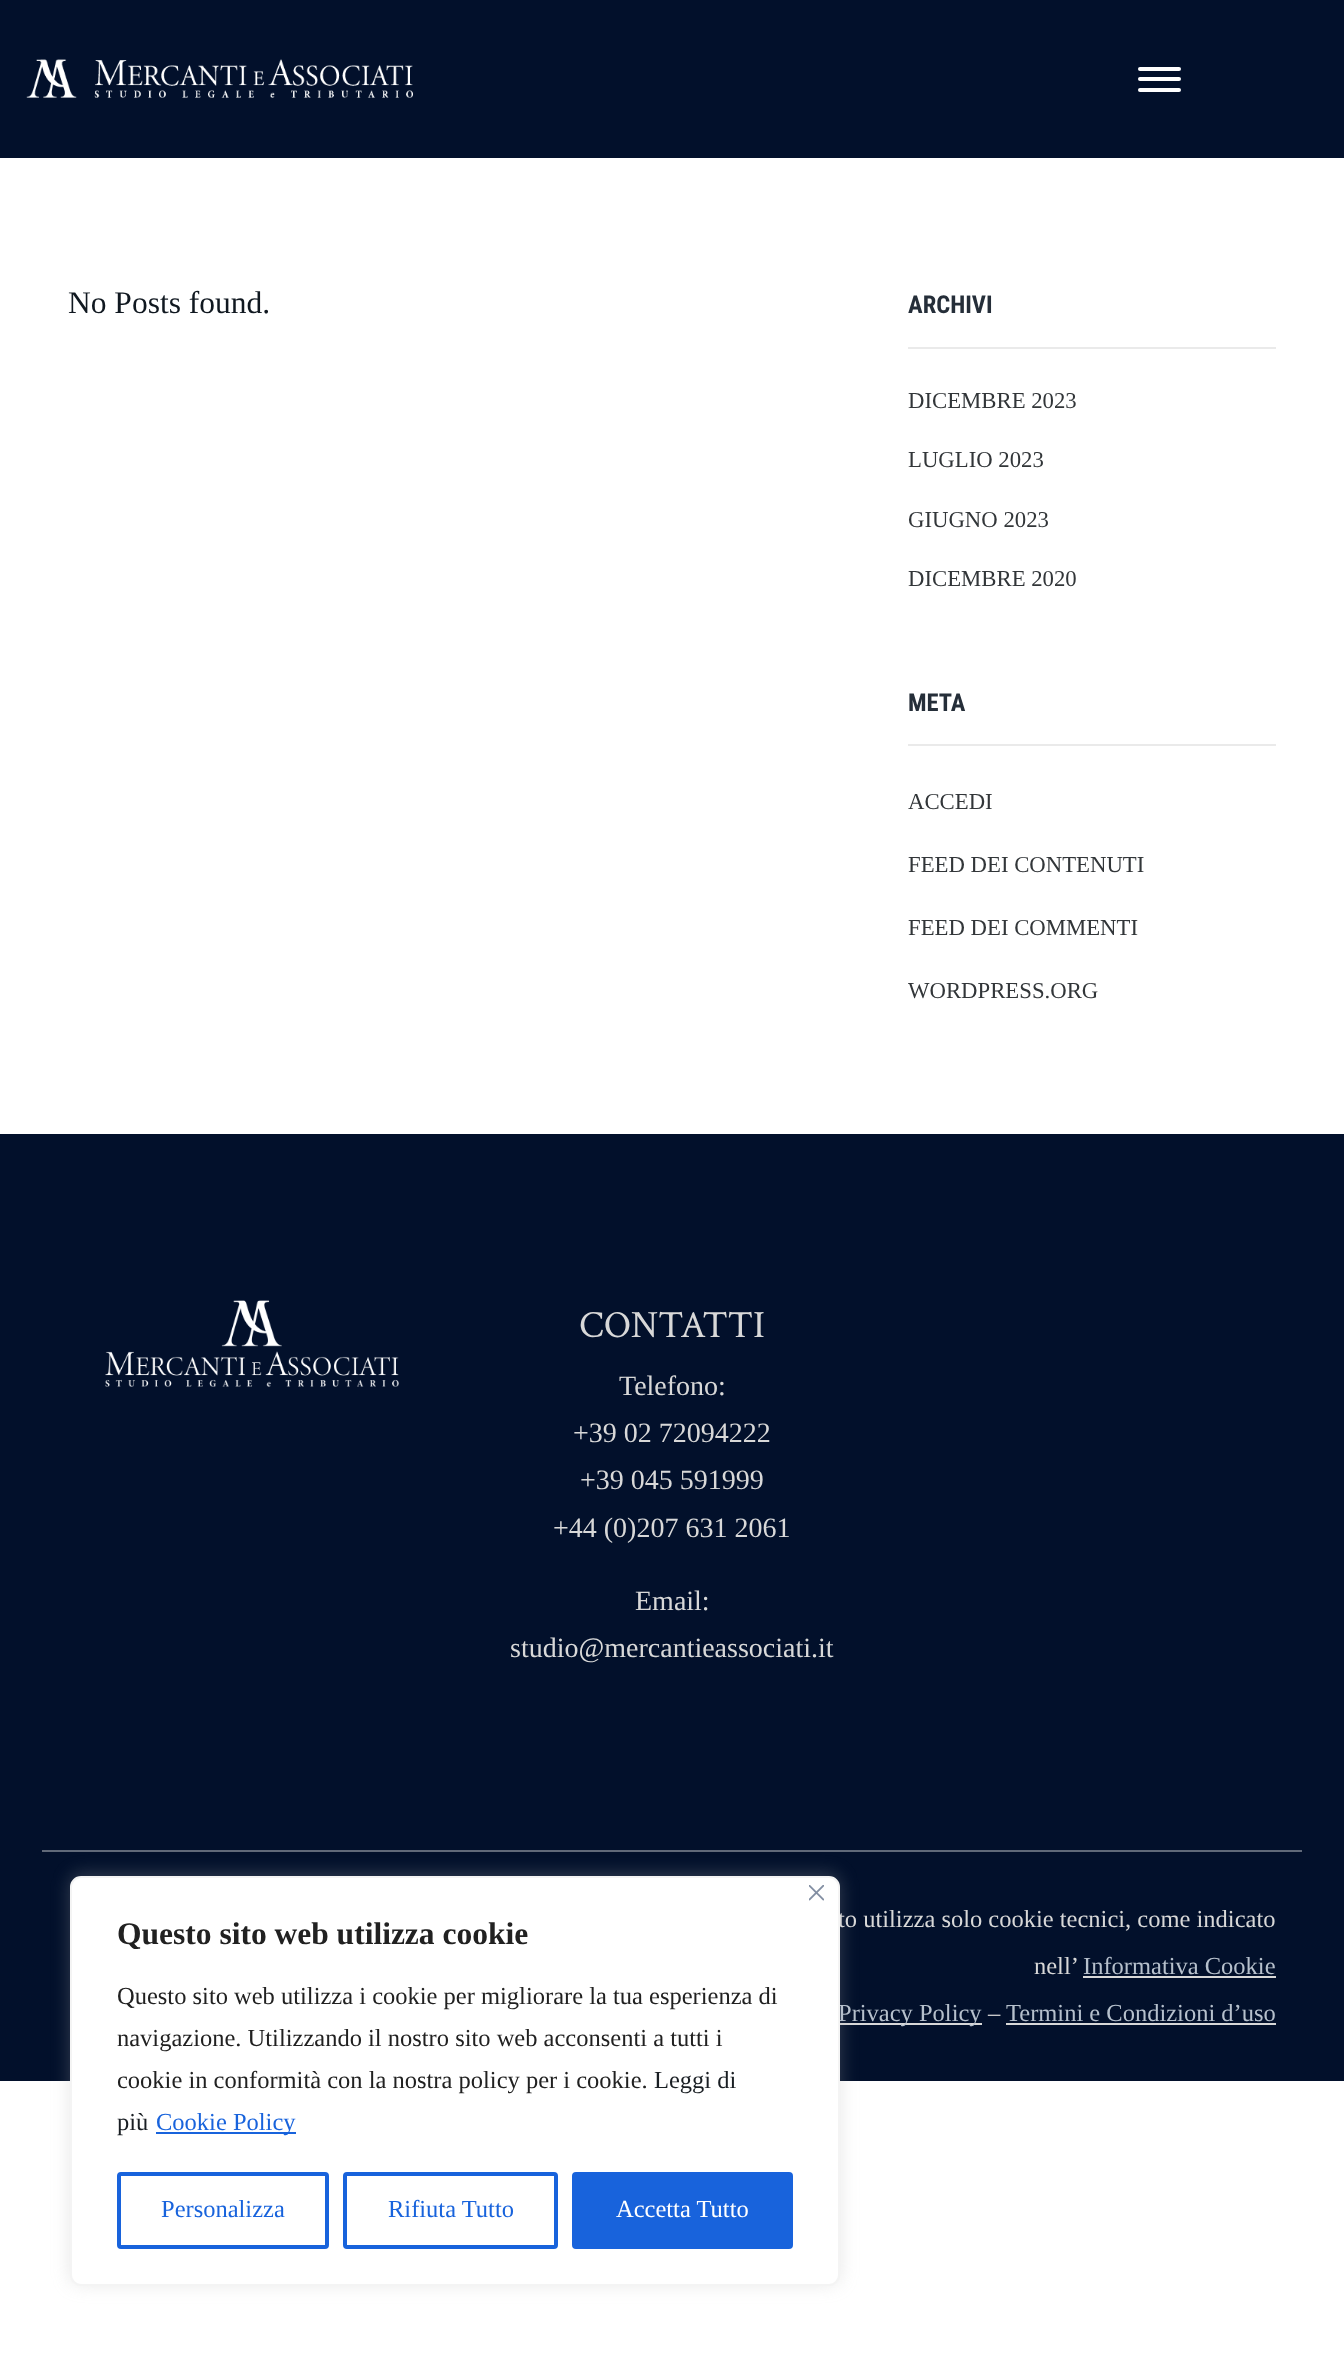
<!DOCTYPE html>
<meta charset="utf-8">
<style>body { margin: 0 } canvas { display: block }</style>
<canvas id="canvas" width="1344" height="2355"></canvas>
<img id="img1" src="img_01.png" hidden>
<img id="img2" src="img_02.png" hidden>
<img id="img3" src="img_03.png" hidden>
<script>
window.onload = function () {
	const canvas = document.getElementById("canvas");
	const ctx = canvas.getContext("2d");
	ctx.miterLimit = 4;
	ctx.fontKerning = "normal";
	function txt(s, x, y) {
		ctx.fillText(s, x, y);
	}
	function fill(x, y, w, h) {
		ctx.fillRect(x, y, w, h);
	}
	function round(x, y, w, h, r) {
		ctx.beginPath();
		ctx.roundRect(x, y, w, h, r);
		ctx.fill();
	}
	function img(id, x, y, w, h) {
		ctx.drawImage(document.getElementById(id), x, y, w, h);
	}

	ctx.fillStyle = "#FFFFFF";
	fill(0, 0, 1344, 2355);
	ctx.fillStyle = "#02102B";
	fill(0, 0, 1344, 158);
	img("img1", 26, 59, 387, 39);
	ctx.fillStyle = "#FFFFFF";
	round(1138, 67, 43, 4, 2);
	round(1138, 77, 43, 4, 2);
	round(1138, 88, 43, 4, 2);
	ctx.fillStyle = "#EAEAEA";
	fill(908, 347, 368, 2);
	fill(908, 744, 368, 2);
	ctx.fillStyle = "#02102B";
	fill(0, 1134, 1344, 947);
	img("img2", 105, 1300, 294, 87);
	ctx.fillStyle = "#606979";
	fill(42, 1850, 1260, 2);
	ctx.fillStyle = "#D8D8D8";
	fill(1083, 1976, 193, 2);
	fill(838, 2023, 144, 2);
	fill(1006, 2023, 270, 2);
	ctx.fillStyle = "rgba(172, 171, 171, 0.3)";
	ctx.filter = "blur(9px)";
	ctx.beginPath();
	ctx.roundRect(70, 1874, 770, 410, 11);
	ctx.fill();
	ctx.filter = "none";
	ctx.font = "31.5px Liberation Serif";
	ctx.fillStyle = "#101820";
	txt("No Posts found.", 68, 313);
	ctx.font = "bold 24.5px Roboto Condensed";
	ctx.fillStyle = "#252E39";
	txt("ARCHIVI", 908, 313);
	ctx.font = "22.75px Liberation Serif";
	ctx.fillStyle = "#323639";
	txt("DICEMBRE 2023", 908, 408);
	txt("LUGLIO 2023", 908, 467);
	txt("GIUGNO 2023", 908, 527);
	txt("DICEMBRE 2020", 908, 586);
	ctx.font = "bold 24.5px Roboto Condensed";
	ctx.fillStyle = "#252E39";
	txt("META", 908, 711);
	ctx.font = "22.75px Liberation Serif";
	ctx.fillStyle = "#323639";
	txt("ACCEDI", 908, 809);
	txt("FEED DEI CONTENUTI", 908, 872);
	txt("FEED DEI COMMENTI", 908, 935);
	txt("WORDPRESS.ORG", 908, 998);
	ctx.font = "38.5px Crimson Text";
	ctx.fillStyle = "#D8D8D8";
	txt("CONTATTI", 579, 1337);
	ctx.font = "28px Liberation Serif";
	txt("Telefono:", 619, 1395);
	txt("+39 02 72094222", 573, 1442);
	txt("+39 045 591999", 580, 1489);
	txt("+44 (0)207 631 2061", 553, 1537);
	txt("Email:", 635, 1610);
	txt("studio@mercantieassociati.it", 510, 1657);
	ctx.font = "24.5px Liberation Serif";
	txt("to utilizza solo cookie tecnici, come indicato", 838, 1927);
	txt("nell’", 1034, 1974);
	ctx.fillStyle = "#B6C0CC";
	txt("Informativa Cookie", 1083, 1974);
	txt("Privacy Policy", 838, 2021);
	ctx.fillStyle = "#D8D8D8";
	txt("–", 988, 2021);
	ctx.fillStyle = "#B6C0CC";
	txt("Termini e Condizioni d’uso", 1006, 2021);
	ctx.fillStyle = "#FFFFFF";
	ctx.beginPath();
	ctx.roundRect(71, 1877, 768, 408, 10);
	ctx.fill();
	ctx.strokeStyle = "#F4F4F4";
	ctx.lineWidth = 2;
	ctx.stroke();
	img("img3", 809, 1885, 15, 16);
	ctx.font = "bold 31.5px Liberation Serif";
	ctx.fillStyle = "#212121";
	txt("Questo sito web utilizza cookie", 117, 1944);
	ctx.font = "24.5px Liberation Serif";
	txt("Questo sito web utilizza i cookie per migliorare la tua esperienza di", 117, 2004);
	txt("navigazione. Utilizzando il nostro sito web acconsenti a tutti i", 117, 2046);
	txt("cookie in conformità con la nostra policy per i cookie.", 117, 2088);
	ctx.fillStyle = "#191E23";
	txt("Leggi di", 654, 2088);
	txt("più", 117, 2130);
	ctx.fillStyle = "#1863DC";
	fill(156, 2132, 140, 2);
	txt("Cookie Policy", 156, 2130);
	ctx.beginPath();
	ctx.roundRect(119, 2174, 208, 73, 2);
	ctx.strokeStyle = "#1863DC";
	ctx.lineWidth = 4;
	ctx.stroke();
	txt("Personalizza", 161, 2217);
	ctx.beginPath();
	ctx.roundRect(345, 2174, 211, 73, 2);
	ctx.stroke();
	txt("Rifiuta Tutto", 388, 2217);
	ctx.beginPath();
	ctx.roundRect(574, 2174, 217, 73, 2);
	ctx.fill();
	ctx.stroke();
	ctx.fillStyle = "#FFFFFF";
	txt("Accetta Tutto", 616, 2217);
};
</script>
